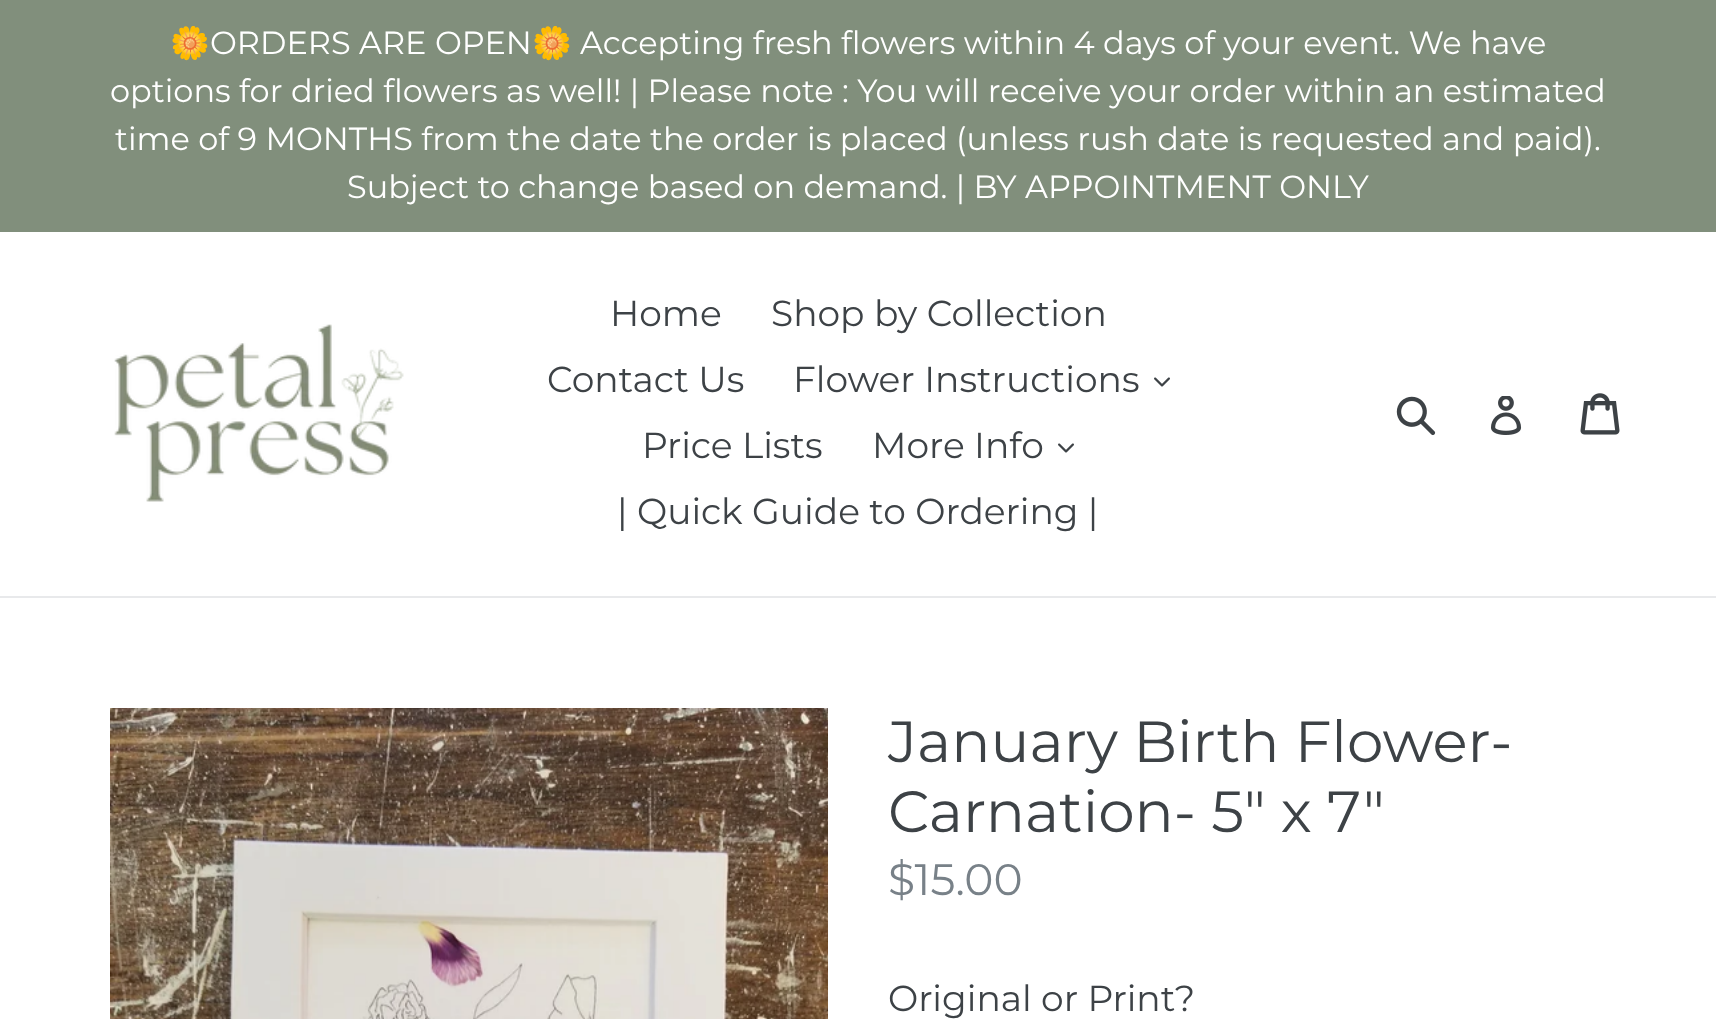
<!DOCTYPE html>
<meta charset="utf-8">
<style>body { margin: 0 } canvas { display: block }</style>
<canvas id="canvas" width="1716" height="1019"></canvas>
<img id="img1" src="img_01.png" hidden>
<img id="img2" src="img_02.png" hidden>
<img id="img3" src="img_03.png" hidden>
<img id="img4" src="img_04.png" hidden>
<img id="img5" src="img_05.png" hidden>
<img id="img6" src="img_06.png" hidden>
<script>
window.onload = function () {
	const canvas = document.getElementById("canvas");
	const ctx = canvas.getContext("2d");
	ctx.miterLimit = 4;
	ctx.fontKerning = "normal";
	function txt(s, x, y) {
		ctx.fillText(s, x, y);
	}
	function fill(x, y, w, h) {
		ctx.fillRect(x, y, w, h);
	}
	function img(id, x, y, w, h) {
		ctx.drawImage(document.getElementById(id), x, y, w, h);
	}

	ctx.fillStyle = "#FFFFFF";
	fill(0, 0, 1716, 1019);
	ctx.fillStyle = "#818F7C";
	fill(0, 0, 1716, 232);
	ctx.fillStyle = "#E8E9EB";
	fill(0, 596, 1716, 2);
	img("img1", 114, 324, 290, 178);
	img("img2", 1154, 377, 16, 10);
	img("img2", 1058, 443, 16, 10);
	img("img3", 1396, 396, 40, 40);
	img("img4", 1491, 396, 31, 39);
	img("img5", 1580, 393, 40, 42);
	img("img6", 110, 708, 718, 311);
	ctx.font = "32px Noto Color Emoji";
	ctx.fillStyle = "#FFFFFF";
	txt("🌼", 170, 54);
	ctx.font = "100 32px Montserrat";
	txt("ORDERS ARE OPEN", 210, 54);
	ctx.font = "32px Noto Color Emoji";
	txt("🌼", 532, 54);
	ctx.font = "100 32px Montserrat";
	txt("Accepting fresh flowers within 4 days of your event. We have", 580, 54);
	txt("options for dried flowers as well! | Please note : You will receive your order within an estimated", 110, 102);
	txt("time of 9 MONTHS from the date the order is placed (unless rush date is requested and paid).", 115, 150);
	txt("Subject to change based on demand. | BY APPOINTMENT ONLY", 347, 198);
	ctx.font = "100 36px Montserrat";
	ctx.fillStyle = "#3D4246";
	txt("Home", 610, 326);
	txt("Shop by Collection", 771, 326);
	txt("Contact Us", 547, 392);
	txt("Flower Instructions", 793, 392);
	txt("Price Lists", 642, 458);
	txt("More Info", 872, 458);
	txt("| Quick Guide to Ordering |", 617, 524);
	ctx.font = "100 58px Montserrat";
	txt("January Birth Flower-", 888, 762);
	txt("Carnation- 5\" x 7\"", 888, 832);
	ctx.font = "100 44px Montserrat";
	ctx.fillStyle = "#788188";
	txt("$15.00", 888, 895);
	ctx.font = "100 36px Montserrat";
	ctx.fillStyle = "#3D4246";
	txt("Original or Print?", 888, 1011);
};
</script>
